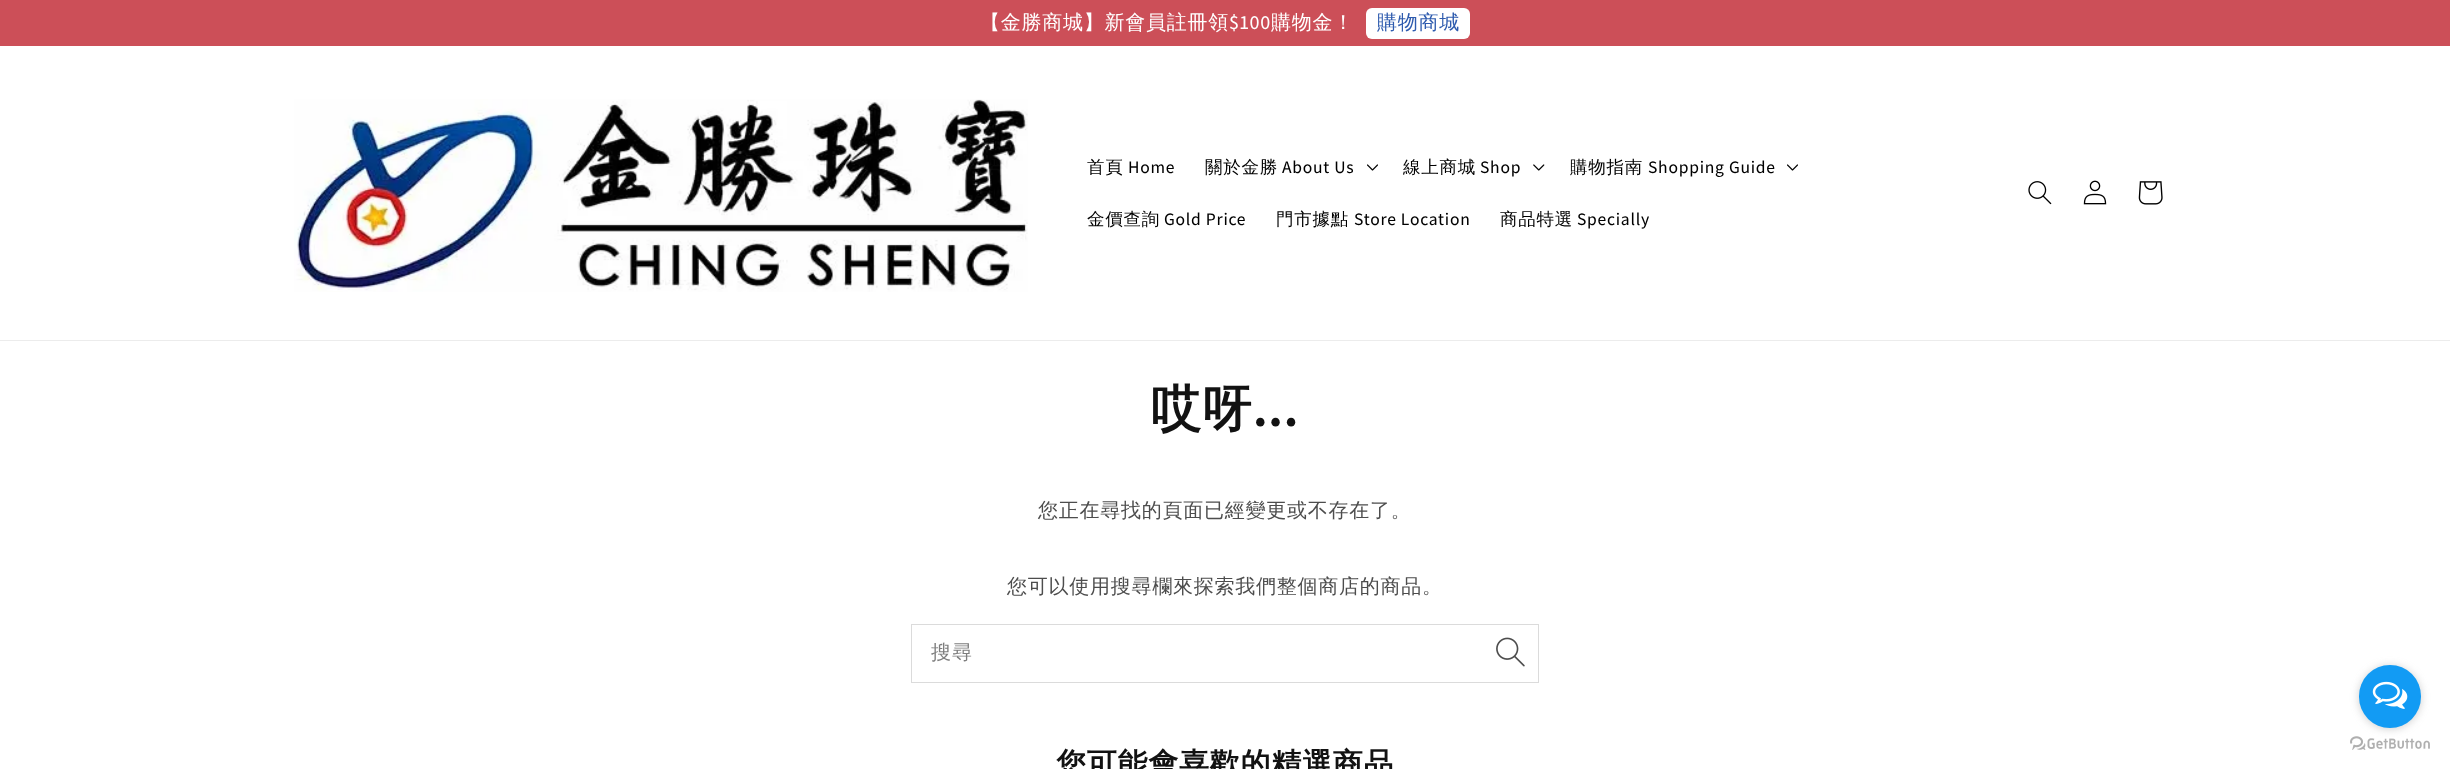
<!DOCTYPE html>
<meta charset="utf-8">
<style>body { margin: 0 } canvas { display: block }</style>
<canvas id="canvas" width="2450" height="769"></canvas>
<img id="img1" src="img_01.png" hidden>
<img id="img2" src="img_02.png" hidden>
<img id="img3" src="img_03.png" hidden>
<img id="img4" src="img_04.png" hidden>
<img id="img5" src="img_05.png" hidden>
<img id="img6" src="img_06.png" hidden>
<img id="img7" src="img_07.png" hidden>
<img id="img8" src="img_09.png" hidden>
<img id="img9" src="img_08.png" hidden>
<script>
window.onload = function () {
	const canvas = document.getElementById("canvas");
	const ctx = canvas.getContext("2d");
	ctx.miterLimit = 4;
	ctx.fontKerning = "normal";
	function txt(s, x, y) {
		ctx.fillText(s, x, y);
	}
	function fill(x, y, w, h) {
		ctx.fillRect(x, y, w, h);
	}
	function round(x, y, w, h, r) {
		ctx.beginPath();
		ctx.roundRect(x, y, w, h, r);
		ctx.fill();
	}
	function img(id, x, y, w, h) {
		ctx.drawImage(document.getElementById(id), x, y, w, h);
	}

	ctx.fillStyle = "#FFFFFF";
	fill(0, 0, 2450, 769);
	ctx.fillStyle = "#CC4F58";
	fill(0, 0, 2450, 46);
	ctx.fillStyle = "#FFFFFF";
	round(1366, 8, 104, 31, 6);
	ctx.fillStyle = "#ECECEC";
	fill(0, 340, 2450, 1);
	img("img1", 294, 99, 734, 193);
	img("img2", 1367, 164, 11, 7);
	img("img3", 1533, 164, 12, 7);
	img("img2", 1787, 164, 11, 7);
	img("img4", 2028, 181, 24, 24);
	img("img5", 2083, 180, 24, 25);
	img("img6", 2138, 181, 25, 24);
	ctx.strokeStyle = "#DBDBDB";
	ctx.strokeRect(911.5, 624.5, 627, 58);
	img("img7", 1496, 637, 29, 30);
	img("img8", 2350, 736, 80, 14);
	ctx.fillStyle = "rgba(136, 136, 136, 0.4)";
	ctx.filter = "blur(4.5px)";
	ctx.beginPath();
	ctx.roundRect(2359, 666, 62, 63, 31);
	ctx.fill();
	ctx.filter = "none";
	ctx.fillStyle = "#129BF4";
	round(2359, 665, 62, 63, 31);
	img("img9", 2372, 681, 36, 28);
	ctx.letterSpacing = "0.75px";
	ctx.font = "500 20px WenQuanYi Zen Hei";
	ctx.fillStyle = "#FFFFFF";
	txt("【金勝商城】新會員註冊領", 980, 29);
	ctx.font = "500 20px Assistant";
	txt("$100", 1229, 29);
	ctx.font = "500 20px WenQuanYi Zen Hei";
	txt("購物金！", 1271, 29);
	ctx.fillStyle = "#2E5BAE";
	txt("購物商城", 1377, 29);
	ctx.font = "500 17.5px WenQuanYi Zen Hei";
	ctx.fillStyle = "#000000";
	txt("首頁", 1087, 173);
	ctx.font = "500 17.5px Assistant";
	txt("Home", 1128, 173);
	ctx.font = "500 17.5px WenQuanYi Zen Hei";
	txt("關於金勝", 1205, 173);
	ctx.font = "500 17.5px Assistant";
	txt("About Us", 1282, 173);
	ctx.font = "500 17.5px WenQuanYi Zen Hei";
	txt("線上商城", 1403, 173);
	ctx.font = "500 17.5px Assistant";
	txt("Shop", 1480, 173);
	ctx.font = "500 17.5px WenQuanYi Zen Hei";
	txt("購物指南", 1570, 173);
	ctx.font = "500 17.5px Assistant";
	txt("Shopping Guide", 1648, 173);
	ctx.font = "500 17.5px WenQuanYi Zen Hei";
	txt("金價查詢", 1087, 225);
	ctx.font = "500 17.5px Assistant";
	txt("Gold Price", 1164, 225);
	ctx.font = "500 17.5px WenQuanYi Zen Hei";
	txt("門市據點", 1276, 225);
	ctx.font = "500 17.5px Assistant";
	txt("Store Location", 1354, 225);
	ctx.font = "500 17.5px WenQuanYi Zen Hei";
	txt("商品特選", 1500, 225);
	ctx.font = "500 17.5px Assistant";
	txt("Specially", 1577, 225);
	ctx.font = "bold 50px WenQuanYi Zen Hei";
	ctx.fillStyle = "#121212";
	txt("哎呀", 1151, 426);
	ctx.font = "bold 50px Assistant";
	txt("...", 1253, 426);
	ctx.font = "500 20px WenQuanYi Zen Hei";
	ctx.fillStyle = "#4D4D4D";
	txt("您正在尋找的頁面已經變更或不存在了。", 1038, 517);
	txt("您可以使用搜尋欄來探索我們整個商店的商品。", 1007, 593);
	ctx.letterSpacing = "1px";
	ctx.fillStyle = "#7D7D7D";
	txt("搜尋", 931, 659);
	ctx.letterSpacing = "0.75px";
	ctx.font = "bold 30px WenQuanYi Zen Hei";
	ctx.fillStyle = "#121212";
	txt("您可能會喜歡的精選商品", 1056, 774);
};
</script>
